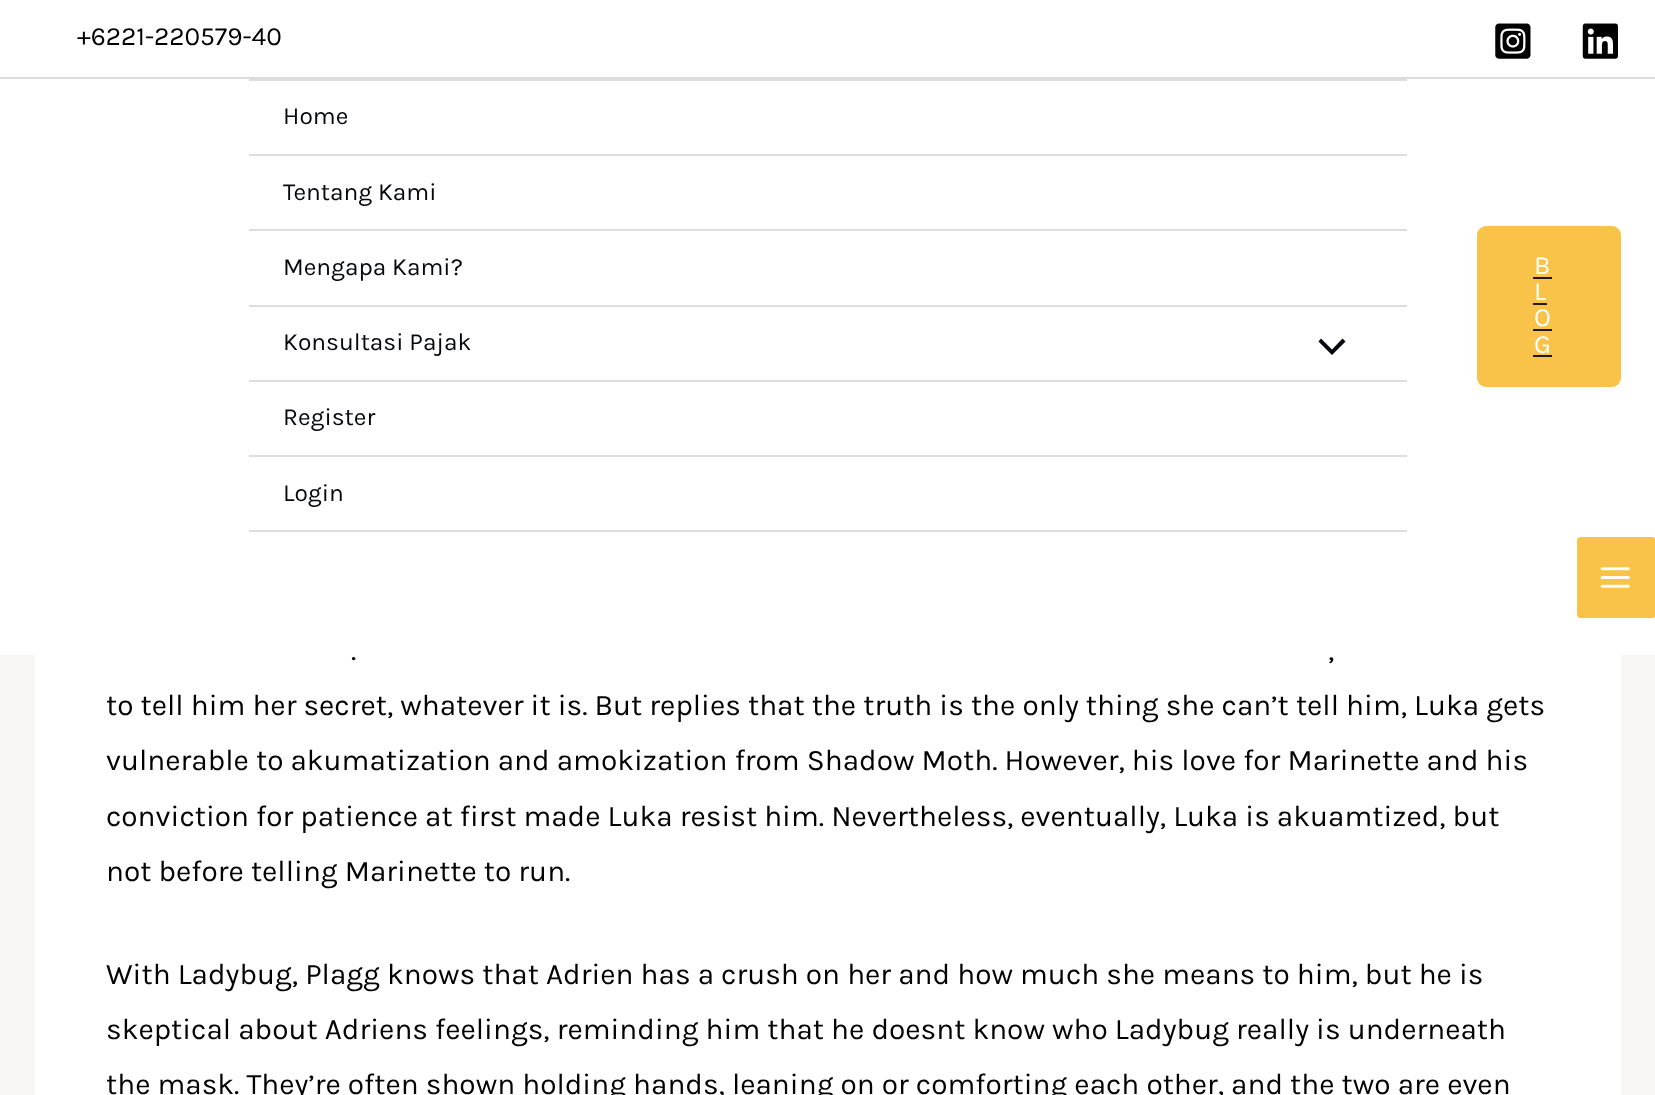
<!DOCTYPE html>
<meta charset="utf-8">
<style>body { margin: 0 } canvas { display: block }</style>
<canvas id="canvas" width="1655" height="1095"></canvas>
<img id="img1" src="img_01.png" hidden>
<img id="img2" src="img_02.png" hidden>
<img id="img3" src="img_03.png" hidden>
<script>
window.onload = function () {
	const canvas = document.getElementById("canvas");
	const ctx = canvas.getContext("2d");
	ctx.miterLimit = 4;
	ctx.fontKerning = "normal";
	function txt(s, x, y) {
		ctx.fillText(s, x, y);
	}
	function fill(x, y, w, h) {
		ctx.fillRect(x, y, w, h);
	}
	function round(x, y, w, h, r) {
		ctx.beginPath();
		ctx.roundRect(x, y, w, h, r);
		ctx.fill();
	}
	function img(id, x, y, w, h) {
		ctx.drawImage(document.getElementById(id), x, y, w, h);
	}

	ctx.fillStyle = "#F8F7F3";
	fill(0, 0, 1655, 1095);
	ctx.fillStyle = "#FFFFFF";
	fill(0, 0, 1655, 77);
	ctx.fillStyle = "#DBDBDB";
	fill(0, 77, 1655, 2);
	img("img1", 1495, 23, 36, 36);
	img("img2", 1582, 23, 36, 36);
	ctx.fillStyle = "#FFFFFF";
	fill(0, 79, 1655, 576);
	ctx.fillStyle = "#DDDDDD";
	fill(249, 79, 1158, 2);
	fill(249, 154, 1158, 2);
	fill(249, 229, 1158, 2);
	fill(249, 305, 1158, 2);
	fill(249, 380, 1158, 2);
	ctx.fillStyle = "#05070C";
	ctx.beginPath();
	ctx.moveTo(1318.5, 341.5);
	ctx.lineTo(1332, 355);
	ctx.lineTo(1345.5, 341.5);
	ctx.lineTo(1342.5, 338.5);
	ctx.lineTo(1332, 349.5);
	ctx.lineTo(1321, 338.5);
	ctx.closePath();
	ctx.fill();
	ctx.fillStyle = "#DDDDDD";
	fill(249, 455, 1158, 2);
	fill(249, 530, 1158, 2);
	ctx.fillStyle = "#F9C349";
	round(1477, 226, 144, 161, 9);
	ctx.fillStyle = "#1E1810";
	fill(1533, 277, 19, 2);
	fill(1533, 303, 14, 2);
	fill(1533, 329, 19, 2);
	fill(1533, 355, 19, 2);
	ctx.fillStyle = "#F9C349";
	round(1577, 537, 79, 81, 4);
	img("img3", 1600, 567, 30, 21);
	ctx.fillStyle = "#FFFFFF";
	fill(35, 655, 1586, 440);
	ctx.font = "26.25px Karla";
	ctx.fillStyle = "#000000";
	txt("+6221-220579-40", 77, 45);
	ctx.font = "24.5px Karla";
	ctx.fillStyle = "#05070C";
	txt("Home", 283, 124);
	txt("Tentang Kami", 283, 200);
	txt("Mengapa Kami?", 283, 275);
	txt("Konsultasi Pajak", 283, 350);
	txt("Register", 283, 425);
	txt("Login", 283, 501);
	ctx.letterSpacing = "2px";
	ctx.font = "26.25px Karla";
	ctx.fillStyle = "#FFFFFF";
	txt("B", 1534, 274);
	txt("L", 1534, 300);
	txt("O", 1534, 326);
	txt("G", 1534, 353);
	ctx.letterSpacing = "0px";
	ctx.font = "29.75px Karla";
	ctx.fillStyle = "#000000";
	txt(".", 351, 660);
	txt(",", 1328, 660);
	txt("to tell him her secret, whatever it is. But replies that the truth is the only thing she can’t tell him, Luka gets", 106, 715);
	txt("vulnerable to akumatization and amokization from Shadow Moth. However, his love for Marinette and his", 106, 770);
	txt("conviction for patience at first made Luka resist him. Nevertheless, eventually, Luka is akuamtized, but", 106, 826);
	txt("not before telling Marinette to run.", 106, 881);
	txt("With Ladybug, Plagg knows that Adrien has a crush on her and how much she means to him, but he is", 106, 984);
	txt("skeptical about Adriens feelings, reminding him that he doesnt know who Ladybug really is underneath", 106, 1039);
	txt("the mask. They’re often shown holding hands, leaning on or comforting each other, and the two are even", 106, 1094);
};
</script>
